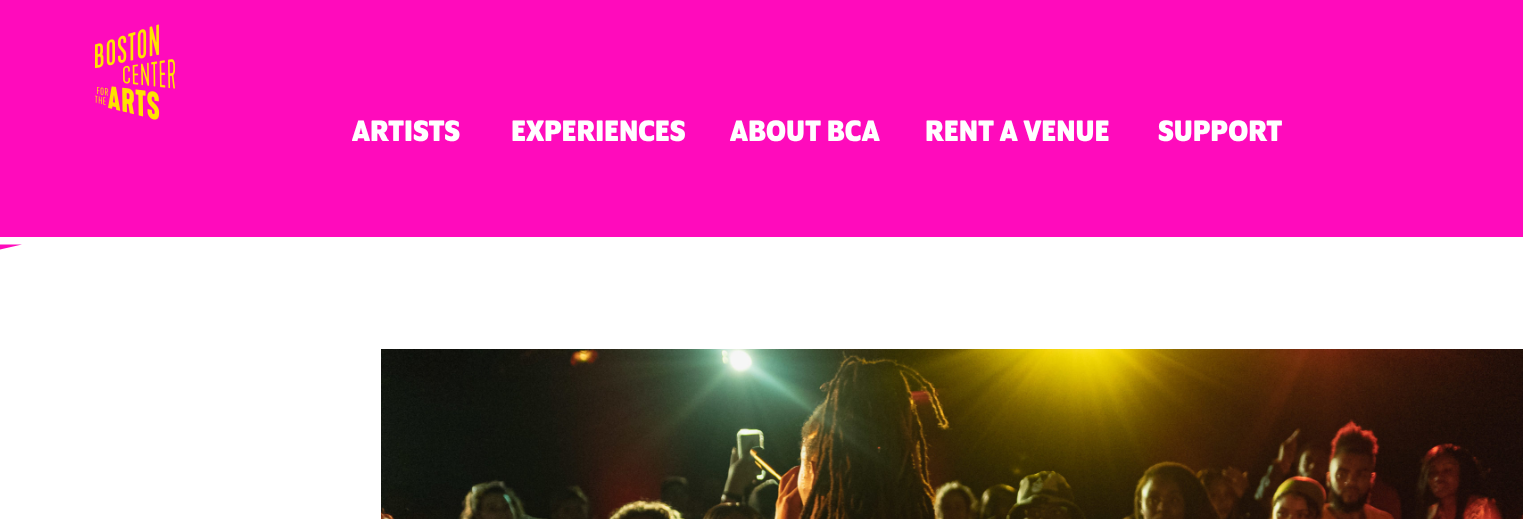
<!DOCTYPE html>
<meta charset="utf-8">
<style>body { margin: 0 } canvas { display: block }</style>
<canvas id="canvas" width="1523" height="519"></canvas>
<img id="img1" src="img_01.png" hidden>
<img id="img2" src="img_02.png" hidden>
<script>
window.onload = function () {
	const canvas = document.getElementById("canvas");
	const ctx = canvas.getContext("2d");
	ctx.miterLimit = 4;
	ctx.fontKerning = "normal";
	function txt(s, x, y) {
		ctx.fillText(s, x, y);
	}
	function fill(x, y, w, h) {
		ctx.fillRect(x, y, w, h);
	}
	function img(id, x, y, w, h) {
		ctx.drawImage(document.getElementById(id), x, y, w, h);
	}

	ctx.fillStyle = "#FFFFFF";
	fill(0, 0, 1523, 519);
	ctx.fillStyle = "#FF0BBC";
	fill(0, 0, 1523, 237);
	ctx.beginPath();
	ctx.moveTo(0, 244.5);
	ctx.lineTo(22, 244.5);
	ctx.lineTo(0, 249.5);
	ctx.closePath();
	ctx.fill("evenodd");
	img("img1", 94, 24, 81, 96);
	img("img2", 381, 349, 1142, 170);
	ctx.font = "bold 32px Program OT";
	ctx.fillStyle = "#FFFFFF";
	txt("ARTISTS", 352, 141);
	txt("EXPERIENCES", 511, 141);
	txt("ABOUT BCA", 730, 141);
	txt("RENT A VENUE", 925, 141);
	txt("SUPPORT", 1158, 141);
};
</script>
